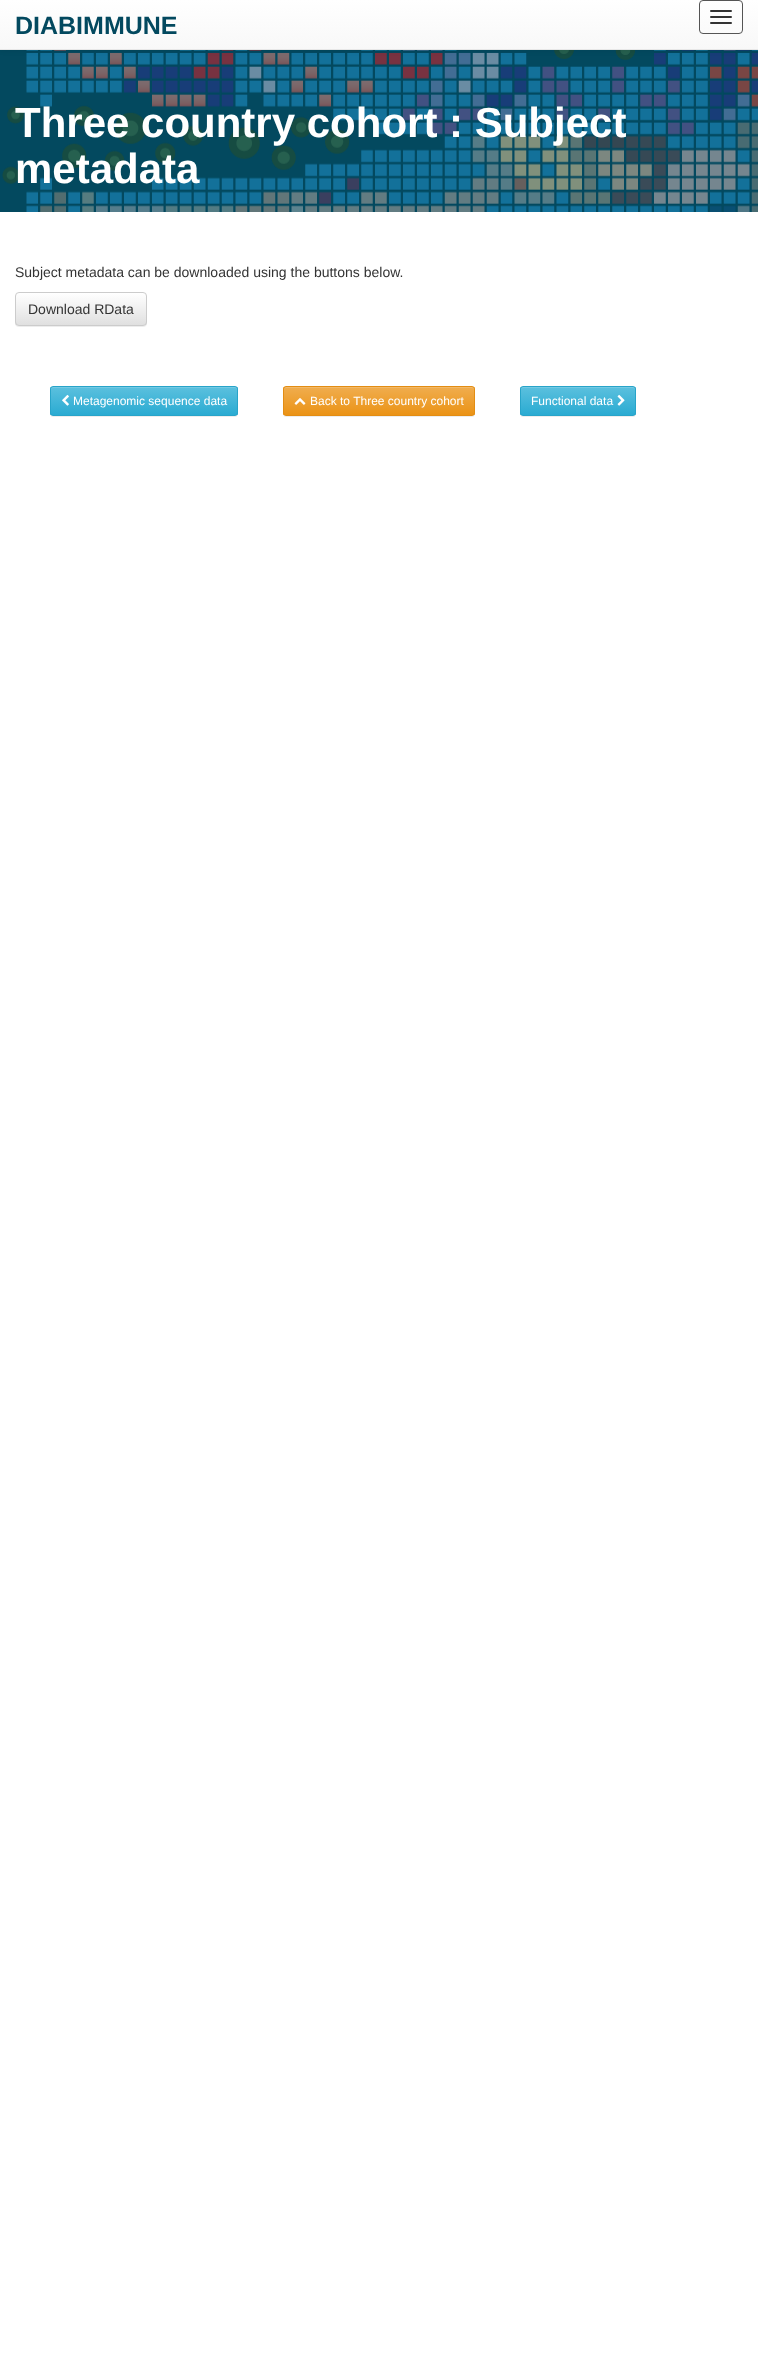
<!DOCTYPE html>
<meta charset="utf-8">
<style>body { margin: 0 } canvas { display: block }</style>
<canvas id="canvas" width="758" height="2362"></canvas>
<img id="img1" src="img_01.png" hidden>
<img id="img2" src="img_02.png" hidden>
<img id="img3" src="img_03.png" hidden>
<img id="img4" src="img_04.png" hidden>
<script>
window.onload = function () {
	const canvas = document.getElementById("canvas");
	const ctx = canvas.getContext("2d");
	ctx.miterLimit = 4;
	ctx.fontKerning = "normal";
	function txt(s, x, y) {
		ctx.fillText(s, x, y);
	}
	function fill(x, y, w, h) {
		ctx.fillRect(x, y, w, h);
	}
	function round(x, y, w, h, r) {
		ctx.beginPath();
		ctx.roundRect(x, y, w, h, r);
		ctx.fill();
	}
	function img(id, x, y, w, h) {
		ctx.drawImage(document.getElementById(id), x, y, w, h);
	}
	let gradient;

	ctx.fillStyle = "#FFFFFF";
	fill(0, 0, 758, 2362);
	ctx.fillStyle = "#03495F";
	fill(0, 50, 758, 162);
	img("img1", 2, 50, 756, 162);
	ctx.fillStyle = "rgba(0, 0, 0, 0.07)";
	ctx.filter = "blur(2.5px)";
	ctx.beginPath();
	ctx.rect(0, 1, 758, 50);
	ctx.fill();
	ctx.filter = "none";
	gradient = ctx.createLinearGradient(379, 0, 379, 49);
	gradient.addColorStop(0, "#FFFFFF");
	gradient.addColorStop(1, "#F8F8F8");
	ctx.fillStyle = gradient;
	fill(0, 0, 758, 49);
	ctx.fillStyle = "#E7E7E7";
	fill(0, 49, 758, 1);
	ctx.beginPath();
	ctx.roundRect(699.5, 0.5, 43, 33, 3.5);
	ctx.strokeStyle = "#555555";
	ctx.stroke();
	ctx.fillStyle = "#333333";
	round(710, 10, 22, 2, 1);
	round(710, 16, 22, 2, 1);
	round(710, 22, 22, 2, 1);
	ctx.fillStyle = "rgba(0, 0, 0, 0.07)";
	ctx.filter = "blur(0.5px)";
	ctx.beginPath();
	ctx.roundRect(15, 293, 132, 34, 4);
	ctx.fill();
	ctx.filter = "none";
	ctx.save();
	ctx.beginPath();
	ctx.roundRect(15, 292, 132, 34, 4);
	ctx.clip();
	gradient = ctx.createLinearGradient(81, 293, 81, 325);
	gradient.addColorStop(0, "#FFFFFF");
	gradient.addColorStop(1, "#E0E0E0");
	ctx.fillStyle = gradient;
	fill(15, 293, 132, 32);
	ctx.restore();
	ctx.beginPath();
	ctx.roundRect(15.5, 292.5, 131, 33, 3.5);
	ctx.strokeStyle = "#CCCCCC";
	ctx.stroke();
	ctx.filter = "blur(0.5px)";
	ctx.beginPath();
	ctx.roundRect(50, 387, 188, 30, 3);
	ctx.fill();
	ctx.filter = "none";
	ctx.save();
	ctx.beginPath();
	ctx.roundRect(50, 386, 188, 30, 3);
	ctx.clip();
	gradient = ctx.createLinearGradient(144, 387, 144, 415);
	gradient.addColorStop(0, "#5BC0DE");
	gradient.addColorStop(1, "#2AABD2");
	ctx.fillStyle = gradient;
	fill(50, 387, 188, 28);
	ctx.restore();
	ctx.fillStyle = "#73C9E3";
	ctx.beginPath();
	ctx.moveTo(53, 388);
	ctx.lineTo(235, 388);
	ctx.bezierCurveTo(236, 388, 237, 389, 237, 390);
	ctx.lineTo(237, 389);
	ctx.bezierCurveTo(237, 388, 236, 387, 235, 387);
	ctx.lineTo(53, 387);
	ctx.bezierCurveTo(52, 387, 51, 388, 51, 389);
	ctx.lineTo(51, 390);
	ctx.bezierCurveTo(51, 389, 52, 388, 53, 388);
	ctx.closePath();
	ctx.fill();
	ctx.beginPath();
	ctx.roundRect(50.5, 386.5, 187, 29, 2.5);
	ctx.strokeStyle = "#28A4C9";
	ctx.stroke();
	img("img2", 62, 394, 7, 12);
	ctx.fillStyle = "rgba(0, 0, 0, 0.07)";
	ctx.filter = "blur(0.5px)";
	ctx.beginPath();
	ctx.roundRect(283, 387, 192, 30, 3);
	ctx.fill();
	ctx.filter = "none";
	ctx.save();
	ctx.beginPath();
	ctx.roundRect(283, 386, 192, 30, 3);
	ctx.clip();
	gradient = ctx.createLinearGradient(379, 387, 379, 415);
	gradient.addColorStop(0, "#F0AD4E");
	gradient.addColorStop(1, "#EB9316");
	ctx.fillStyle = gradient;
	fill(283, 387, 192, 28);
	ctx.restore();
	ctx.fillStyle = "#F2B968";
	ctx.beginPath();
	ctx.moveTo(286, 388);
	ctx.lineTo(472, 388);
	ctx.lineTo(474, 389);
	ctx.lineTo(474, 390);
	ctx.lineTo(474, 389);
	ctx.bezierCurveTo(474, 388, 473, 387, 472, 387);
	ctx.lineTo(286, 387);
	ctx.bezierCurveTo(285, 387, 284, 388, 284, 389);
	ctx.lineTo(284, 390);
	ctx.bezierCurveTo(284, 389, 285, 388, 286, 388);
	ctx.closePath();
	ctx.fill();
	ctx.beginPath();
	ctx.roundRect(283.5, 386.5, 191, 29, 2.5);
	ctx.strokeStyle = "#E38D13";
	ctx.stroke();
	img("img3", 294, 398, 12, 7);
	ctx.fillStyle = "rgba(0, 0, 0, 0.07)";
	ctx.filter = "blur(0.5px)";
	ctx.beginPath();
	ctx.roundRect(520, 387, 116, 30, 3);
	ctx.fill();
	ctx.filter = "none";
	ctx.save();
	ctx.beginPath();
	ctx.roundRect(520, 386, 116, 30, 3);
	ctx.clip();
	gradient = ctx.createLinearGradient(578, 387, 578, 415);
	gradient.addColorStop(0, "#5BC0DE");
	gradient.addColorStop(1, "#2AABD2");
	ctx.fillStyle = gradient;
	fill(520, 387, 116, 28);
	ctx.restore();
	ctx.fillStyle = "#73C9E3";
	ctx.beginPath();
	ctx.moveTo(523, 388);
	ctx.lineTo(633, 388);
	ctx.bezierCurveTo(634, 388, 635, 389, 635, 390);
	ctx.bezierCurveTo(635, 389, 635, 387, 633, 387);
	ctx.lineTo(523, 387);
	ctx.bezierCurveTo(521, 387, 521, 389, 521, 390);
	ctx.bezierCurveTo(521, 389, 522, 388, 523, 388);
	ctx.closePath();
	ctx.fill();
	ctx.beginPath();
	ctx.roundRect(520.5, 386.5, 115, 29, 2.5);
	ctx.strokeStyle = "#28A4C9";
	ctx.stroke();
	img("img4", 617, 394, 8, 12);
	ctx.font = "bold 25px Liberation Sans";
	ctx.fillStyle = "#03495F";
	txt("DIABIMMUNE", 15, 34);
	ctx.font = "bold 42px Liberation Sans";
	ctx.fillStyle = "#FFFFFF";
	txt("Three country cohort : Subject", 15, 137);
	txt("metadata", 15, 183);
	ctx.font = "14px Liberation Sans";
	ctx.fillStyle = "#333333";
	txt("Subject metadata can be downloaded using the buttons below.", 15, 277);
	txt("Download RData", 28, 314);
	ctx.font = "12px Liberation Sans";
	ctx.fillStyle = "#FFFFFF";
	txt("Metagenomic sequence data", 73, 405);
	txt("Back to Three country cohort", 310, 405);
	txt("Functional data", 531, 405);
};
</script>
